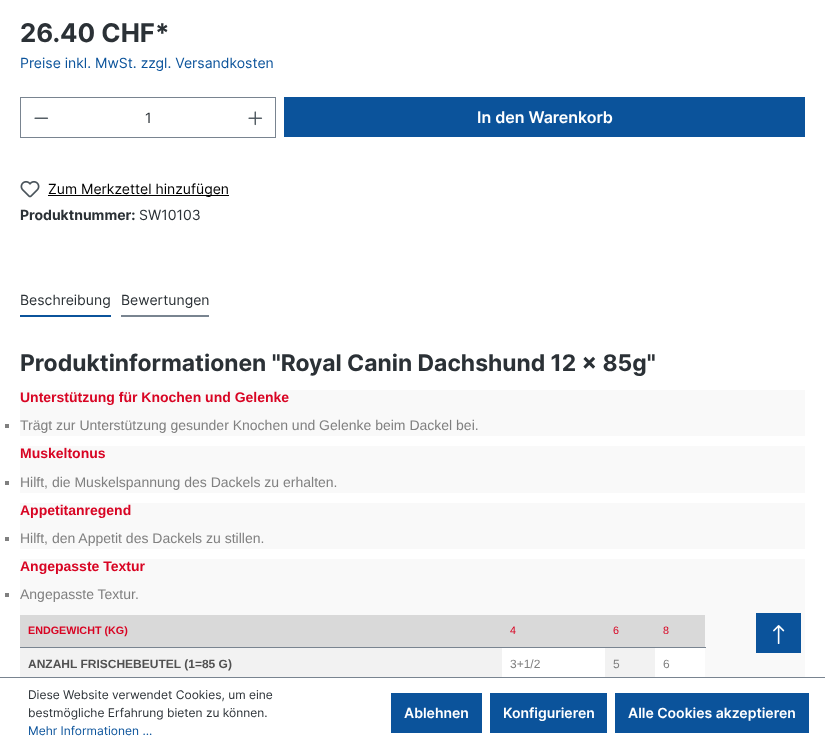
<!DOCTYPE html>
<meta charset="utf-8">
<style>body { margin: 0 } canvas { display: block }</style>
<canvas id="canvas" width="825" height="748"></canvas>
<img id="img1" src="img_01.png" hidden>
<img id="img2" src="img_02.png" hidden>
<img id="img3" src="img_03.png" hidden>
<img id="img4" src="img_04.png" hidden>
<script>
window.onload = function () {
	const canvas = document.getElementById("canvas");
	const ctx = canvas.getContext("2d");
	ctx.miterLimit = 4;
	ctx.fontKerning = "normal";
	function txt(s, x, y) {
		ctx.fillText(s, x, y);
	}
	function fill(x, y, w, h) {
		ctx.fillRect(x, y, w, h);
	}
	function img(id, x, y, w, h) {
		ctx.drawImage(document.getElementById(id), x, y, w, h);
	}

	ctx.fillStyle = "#FFFFFF";
	fill(0, 0, 825, 748);
	ctx.fillStyle = "#798490";
	fill(20, 97, 256, 1);
	fill(20, 137, 216, 1);
	fill(20, 97, 1, 41);
	img("img1", 34, 117, 15, 2);
	fill(275, 97, 1, 41);
	fill(235, 137, 41, 1);
	img("img2", 248, 111, 15, 15);
	ctx.fillStyle = "#0B539B";
	fill(284, 97, 521, 40);
	img("img3", 20, 180, 20, 18);
	ctx.fillStyle = "#000000";
	fill(48, 195, 181, 1);
	ctx.fillStyle = "#0B539B";
	fill(20, 315, 91, 2);
	ctx.fillStyle = "#798490";
	fill(121, 315, 88, 2);
	ctx.fillStyle = "#F9F9F9";
	fill(20, 390, 785, 46);
	ctx.fillStyle = "#808080";
	fill(5, 424, 4, 4);
	ctx.fillStyle = "#F9F9F9";
	fill(20, 446, 785, 47);
	ctx.fillStyle = "#808080";
	fill(5, 481, 4, 4);
	ctx.fillStyle = "#F9F9F9";
	fill(20, 503, 785, 46);
	ctx.fillStyle = "#808080";
	fill(5, 537, 4, 4);
	ctx.fillStyle = "#F9F9F9";
	fill(20, 559, 785, 118);
	ctx.fillStyle = "#808080";
	fill(5, 593, 4, 4);
	ctx.fillStyle = "#FFFFFF";
	fill(502, 648, 203, 29);
	ctx.fillStyle = "#D9D9D9";
	fill(20, 615, 685, 32);
	ctx.fillStyle = "#798490";
	fill(20, 647, 686, 1);
	ctx.fillStyle = "#F2F2F2";
	fill(20, 648, 482, 29);
	fill(605, 648, 50, 29);
	ctx.fillStyle = "#0B539B";
	fill(756, 613, 45, 40);
	img("img4", 773, 625, 12, 19);
	ctx.fillStyle = "#798490";
	fill(0, 677, 825, 1);
	ctx.fillStyle = "#0B539B";
	fill(391, 693, 91, 40);
	fill(490, 693, 117, 40);
	fill(615, 693, 194, 40);
	ctx.font = "bold 25.75px Inter";
	ctx.fillStyle = "#2B3136";
	txt("26.40 CHF*", 20, 42);
	ctx.font = "14px Inter";
	ctx.fillStyle = "#0B539B";
	txt("Preise inkl. MwSt. zzgl. Versandkosten", 20, 68);
	ctx.fillStyle = "#2B3136";
	txt("1", 145, 123);
	ctx.font = "600 16px Inter";
	ctx.fillStyle = "#FFFFFF";
	txt("In den Warenkorb", 477, 123);
	ctx.font = "14px Inter";
	ctx.fillStyle = "#000000";
	txt("Zum Merkzettel hinzufügen", 48, 194);
	ctx.font = "bold 14px Inter";
	ctx.fillStyle = "#2B3136";
	txt("Produktnummer:", 20, 220);
	ctx.font = "14px Inter";
	txt("SW10103", 139, 220);
	txt("Beschreibung", 20, 305);
	txt("Bewertungen", 121, 305);
	ctx.font = "bold 22.9px Inter";
	txt("Produktinformationen \"Royal Canin Dachshund 12 x 85g\"", 20, 371);
	ctx.font = "bold 14px Liberation Sans";
	ctx.fillStyle = "#D80423";
	txt("Unterstützung für Knochen und Gelenke", 20, 402);
	ctx.font = "14px Liberation Sans";
	ctx.fillStyle = "#808080";
	txt("Trägt zur Unterstützung gesunder Knochen und Gelenke beim Dackel bei.", 20, 430);
	ctx.font = "bold 14px Liberation Sans";
	ctx.fillStyle = "#D80423";
	txt("Muskeltonus", 20, 458);
	ctx.font = "14px Liberation Sans";
	ctx.fillStyle = "#808080";
	txt("Hilft, die Muskelspannung des Dackels zu erhalten.", 20, 487);
	ctx.font = "bold 14px Liberation Sans";
	ctx.fillStyle = "#D80423";
	txt("Appetitanregend", 20, 515);
	ctx.font = "14px Liberation Sans";
	ctx.fillStyle = "#808080";
	txt("Hilft, den Appetit des Dackels zu stillen.", 20, 543);
	ctx.font = "bold 14px Liberation Sans";
	ctx.fillStyle = "#D80423";
	txt("Angepasste Textur", 20, 571);
	ctx.font = "14px Liberation Sans";
	ctx.fillStyle = "#808080";
	txt("Angepasste Textur.", 20, 599);
	ctx.font = "bold 10.75px Liberation Sans";
	ctx.fillStyle = "#D80423";
	txt("ENDGEWICHT (KG)", 28, 634);
	ctx.font = "10.75px Liberation Sans";
	txt("4", 510, 634);
	txt("6", 613, 634);
	txt("8", 663, 634);
	ctx.font = "bold 12px Liberation Sans";
	ctx.fillStyle = "#515151";
	txt("ANZAHL FRISCHEBEUTEL (1=85 G)", 28, 668);
	ctx.font = "12px Liberation Sans";
	ctx.fillStyle = "#808080";
	txt("3+1/2", 510, 668);
	txt("5", 613, 668);
	txt("6", 663, 668);
	ctx.font = "12px Inter";
	ctx.fillStyle = "#2B3136";
	txt("Diese Website verwendet Cookies, um eine", 28, 699);
	txt("bestmögliche Erfahrung bieten zu können.", 28, 717);
	ctx.fillStyle = "#0B539B";
	txt("Mehr Informationen ...", 28, 735);
	ctx.font = "600 14px Inter";
	ctx.fillStyle = "#FFFFFF";
	txt("Ablehnen", 404, 718);
	txt("Konfigurieren", 503, 718);
	txt("Alle Cookies akzeptieren", 628, 718);
};
</script>
